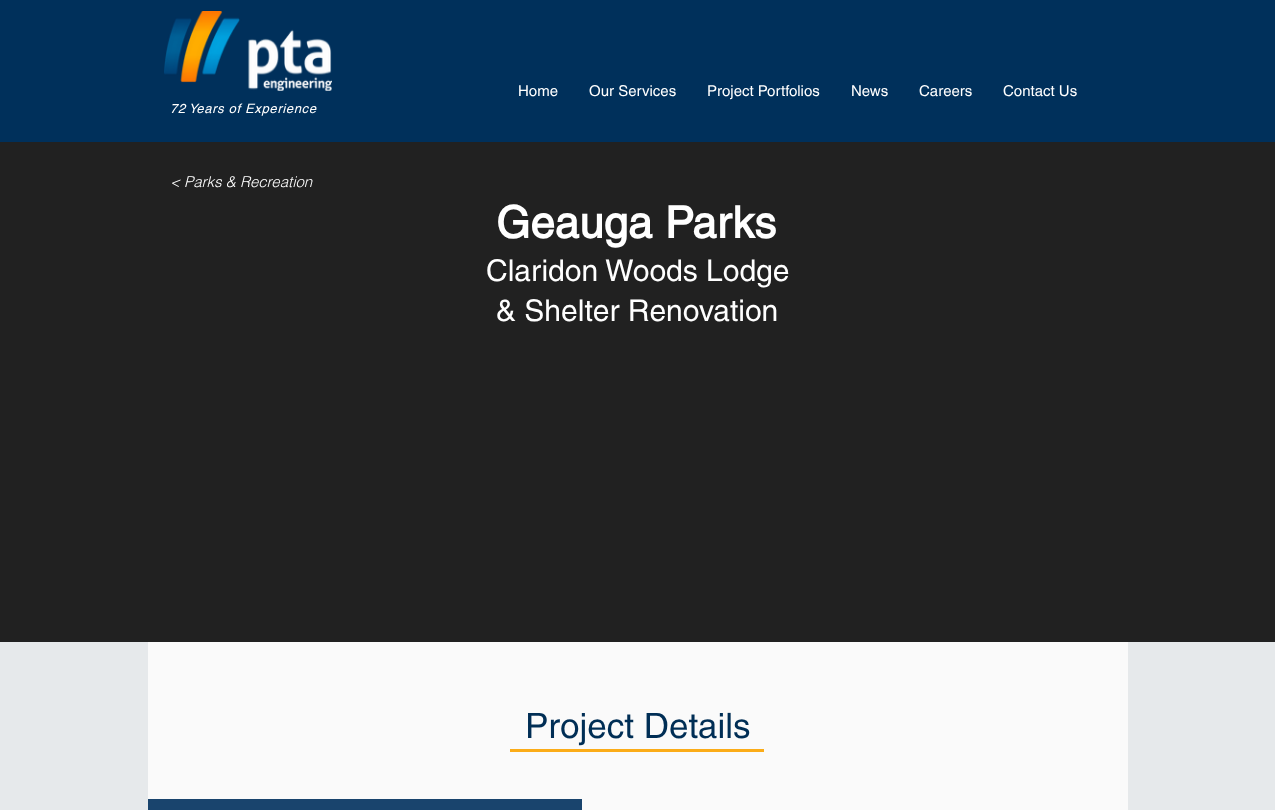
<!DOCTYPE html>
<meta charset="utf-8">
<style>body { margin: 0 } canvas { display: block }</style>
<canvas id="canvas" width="1275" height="810"></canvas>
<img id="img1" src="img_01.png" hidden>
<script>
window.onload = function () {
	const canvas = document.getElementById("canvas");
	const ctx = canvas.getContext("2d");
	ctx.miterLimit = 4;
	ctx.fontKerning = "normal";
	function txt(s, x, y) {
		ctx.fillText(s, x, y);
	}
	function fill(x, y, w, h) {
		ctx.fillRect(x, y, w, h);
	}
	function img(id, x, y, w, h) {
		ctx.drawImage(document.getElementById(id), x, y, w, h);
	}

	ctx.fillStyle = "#E6E9EB";
	fill(0, 0, 1275, 810);
	ctx.fillStyle = "#00305B";
	fill(0, 0, 1275, 142);
	img("img1", 164, 11, 168, 80);
	ctx.fillStyle = "#212121";
	fill(0, 142, 1275, 500);
	ctx.fillStyle = "#FAFAFA";
	fill(148, 642, 980, 168);
	ctx.fillStyle = "#19446D";
	fill(148, 799, 434, 11);
	ctx.fillStyle = "#FBAC18";
	fill(510, 749, 254, 3);
	ctx.font = "15px helvetica";
	ctx.fillStyle = "#FFFFFF";
	txt("Home", 518, 96);
	txt("Our Services", 589, 96);
	txt("Project Portfolios", 707, 96);
	txt("News", 851, 96);
	txt("Careers", 919, 96);
	txt("Contact Us", 1003, 96);
	ctx.letterSpacing = "0.65px";
	ctx.font = "italic 13px helvetica";
	txt("72 Years of Experience", 170, 113);
	ctx.letterSpacing = "0px";
	ctx.font = "italic 300 15px helvetica";
	txt("< Parks & Recreation", 170, 187);
	ctx.font = "bold 44px helvetica";
	txt("Geauga Parks", 496, 238);
	ctx.font = "30px helvetica";
	txt("Claridon Woods Lodge", 486, 281);
	txt("& Shelter Renovation", 496, 321);
	ctx.font = "35px helvetica";
	ctx.fillStyle = "#002E55";
	txt("Project Details", 525, 738);
};
</script>
